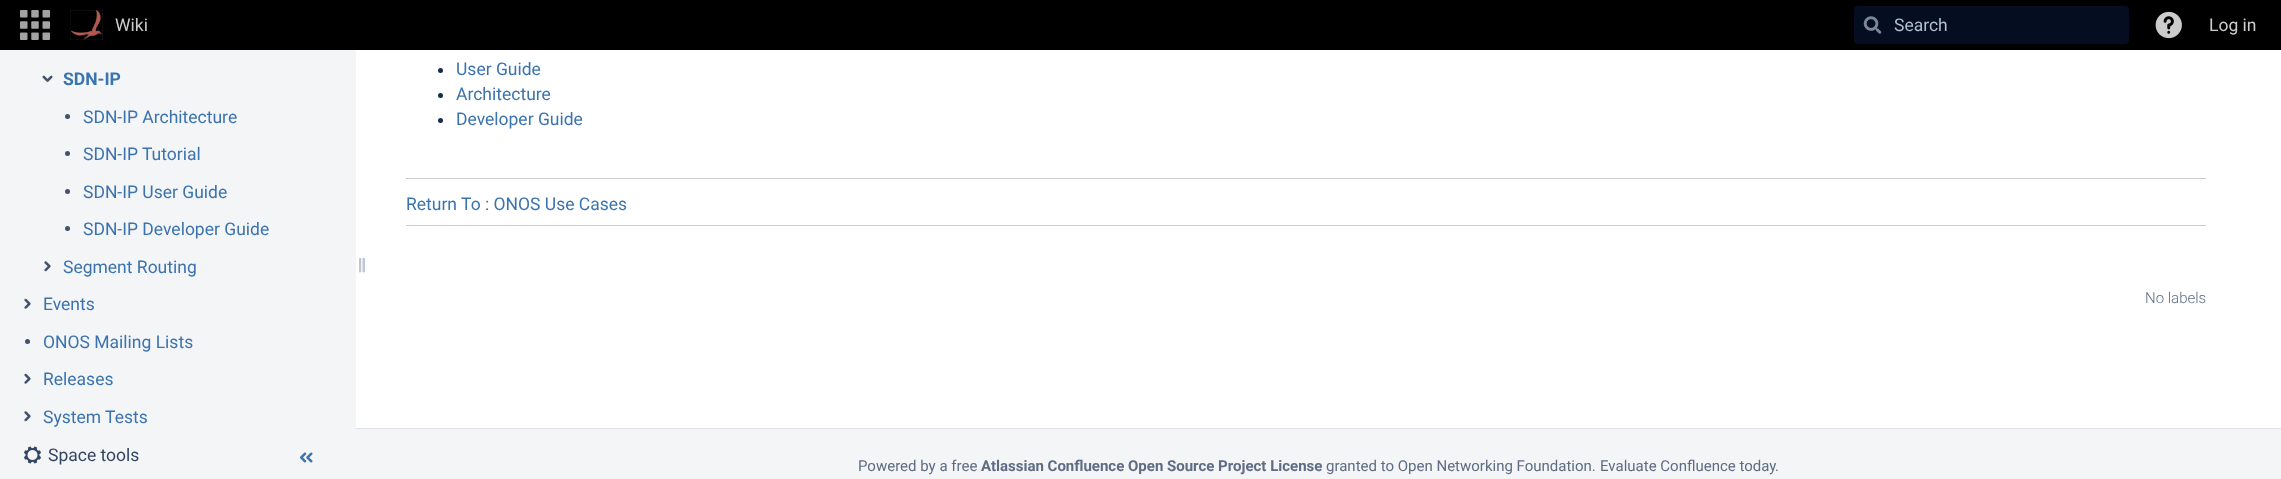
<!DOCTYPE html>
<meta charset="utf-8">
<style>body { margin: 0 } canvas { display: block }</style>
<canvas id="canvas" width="2281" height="479"></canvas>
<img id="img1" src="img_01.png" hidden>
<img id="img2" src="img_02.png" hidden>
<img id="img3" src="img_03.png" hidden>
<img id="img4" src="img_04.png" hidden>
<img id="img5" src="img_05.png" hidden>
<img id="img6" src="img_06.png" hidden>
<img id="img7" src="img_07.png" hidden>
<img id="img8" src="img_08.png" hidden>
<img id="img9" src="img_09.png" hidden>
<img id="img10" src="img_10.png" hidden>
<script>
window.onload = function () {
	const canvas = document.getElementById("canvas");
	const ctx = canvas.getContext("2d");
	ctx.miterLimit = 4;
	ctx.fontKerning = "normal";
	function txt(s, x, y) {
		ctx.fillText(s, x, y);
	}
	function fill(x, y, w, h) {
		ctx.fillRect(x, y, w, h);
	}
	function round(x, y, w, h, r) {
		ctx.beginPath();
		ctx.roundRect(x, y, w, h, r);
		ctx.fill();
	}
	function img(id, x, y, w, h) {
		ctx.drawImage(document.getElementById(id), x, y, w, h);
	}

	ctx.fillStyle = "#F4F5F7";
	fill(0, 0, 2281, 479);
	ctx.fillStyle = "#000000";
	fill(0, 0, 2281, 50);
	img("img1", 20, 10, 30, 30);
	img("img2", 70, 10, 33, 30);
	ctx.fillStyle = "#040E20";
	round(1854, 6, 275, 38, 4);
	img("img3", 1863, 16, 19, 18);
	img("img4", 2155, 11, 27, 28);
	img("img5", 42, 75, 11, 7);
	ctx.fillStyle = "#42526E";
	ctx.beginPath();
	ctx.arc(67.5, 116.5, 2.5, 0, Math.PI * 2);
	ctx.fill();
	ctx.beginPath();
	ctx.arc(67.5, 153.5, 2.5, 0, Math.PI * 2);
	ctx.fill();
	ctx.beginPath();
	ctx.arc(67.5, 191.5, 2.5, 0, Math.PI * 2);
	ctx.fill();
	ctx.beginPath();
	ctx.arc(67.5, 228.5, 2.5, 0, Math.PI * 2);
	ctx.fill();
	img("img6", 44, 261, 7, 11);
	img("img7", 24, 298, 7, 11);
	ctx.beginPath();
	ctx.arc(27.5, 341.5, 2.5, 0, Math.PI * 2);
	ctx.fill();
	img("img7", 24, 373, 7, 11);
	img("img6", 24, 411, 7, 11);
	ctx.fillStyle = "#FFFFFF";
	fill(356, 50, 1925, 378);
	img("img8", 359, 258, 6, 15);
	img("img9", 24, 446, 17, 18);
	img("img10", 300, 452, 13, 11);
	ctx.fillStyle = "#DFE1E6";
	fill(356, 428, 1925, 1);
	ctx.fillStyle = "#172B4D";
	ctx.beginPath();
	ctx.arc(440.5, 70.5, 2.5, 0, Math.PI * 2);
	ctx.fill();
	ctx.beginPath();
	ctx.arc(440.5, 95.5, 2.5, 0, Math.PI * 2);
	ctx.fill();
	ctx.beginPath();
	ctx.arc(440.5, 120.5, 2.5, 0, Math.PI * 2);
	ctx.fill();
	ctx.fillStyle = "#CCCCCC";
	fill(406, 178, 1800, 1);
	fill(406, 225, 1800, 1);
	ctx.font = "17.5px Roboto";
	txt("Wiki", 115, 31);
	ctx.fillStyle = "#B2BFD2";
	txt("Search", 1894, 31);
	ctx.fillStyle = "#CCCCCC";
	txt("Log in", 2209, 31);
	ctx.font = "bold 17.5px Roboto";
	ctx.fillStyle = "#3B73AF";
	txt("SDN-IP", 63, 85);
	ctx.font = "17.5px Roboto";
	txt("SDN-IP Architecture", 83, 123);
	txt("SDN-IP Tutorial", 83, 160);
	txt("SDN-IP User Guide", 83, 198);
	txt("SDN-IP Developer Guide", 83, 235);
	txt("Segment Routing", 63, 273);
	txt("Events", 43, 310);
	txt("ONOS Mailing Lists", 43, 348);
	txt("Releases", 43, 385);
	txt("System Tests", 43, 423);
	ctx.fillStyle = "#344563";
	txt("Space tools", 48, 461);
	ctx.fillStyle = "#3B73AF";
	txt("User Guide", 456, 75);
	txt("Architecture", 456, 100);
	txt("Developer Guide", 456, 125);
	txt("Return To : ONOS Use Cases", 406, 210);
	ctx.font = "300 15px Roboto";
	ctx.fillStyle = "#5E6C84";
	txt("No labels", 2145, 303);
	ctx.font = "15px Roboto";
	txt("Powered by a free", 858, 471);
	ctx.font = "bold 15px Roboto";
	txt("Atlassian Confluence Open Source Project License", 981, 471);
	ctx.font = "15px Roboto";
	txt("granted to Open Networking Foundation.", 1326, 471);
	txt("Evaluate Confluence today", 1600, 471);
	txt(".", 1775, 471);
};
</script>
